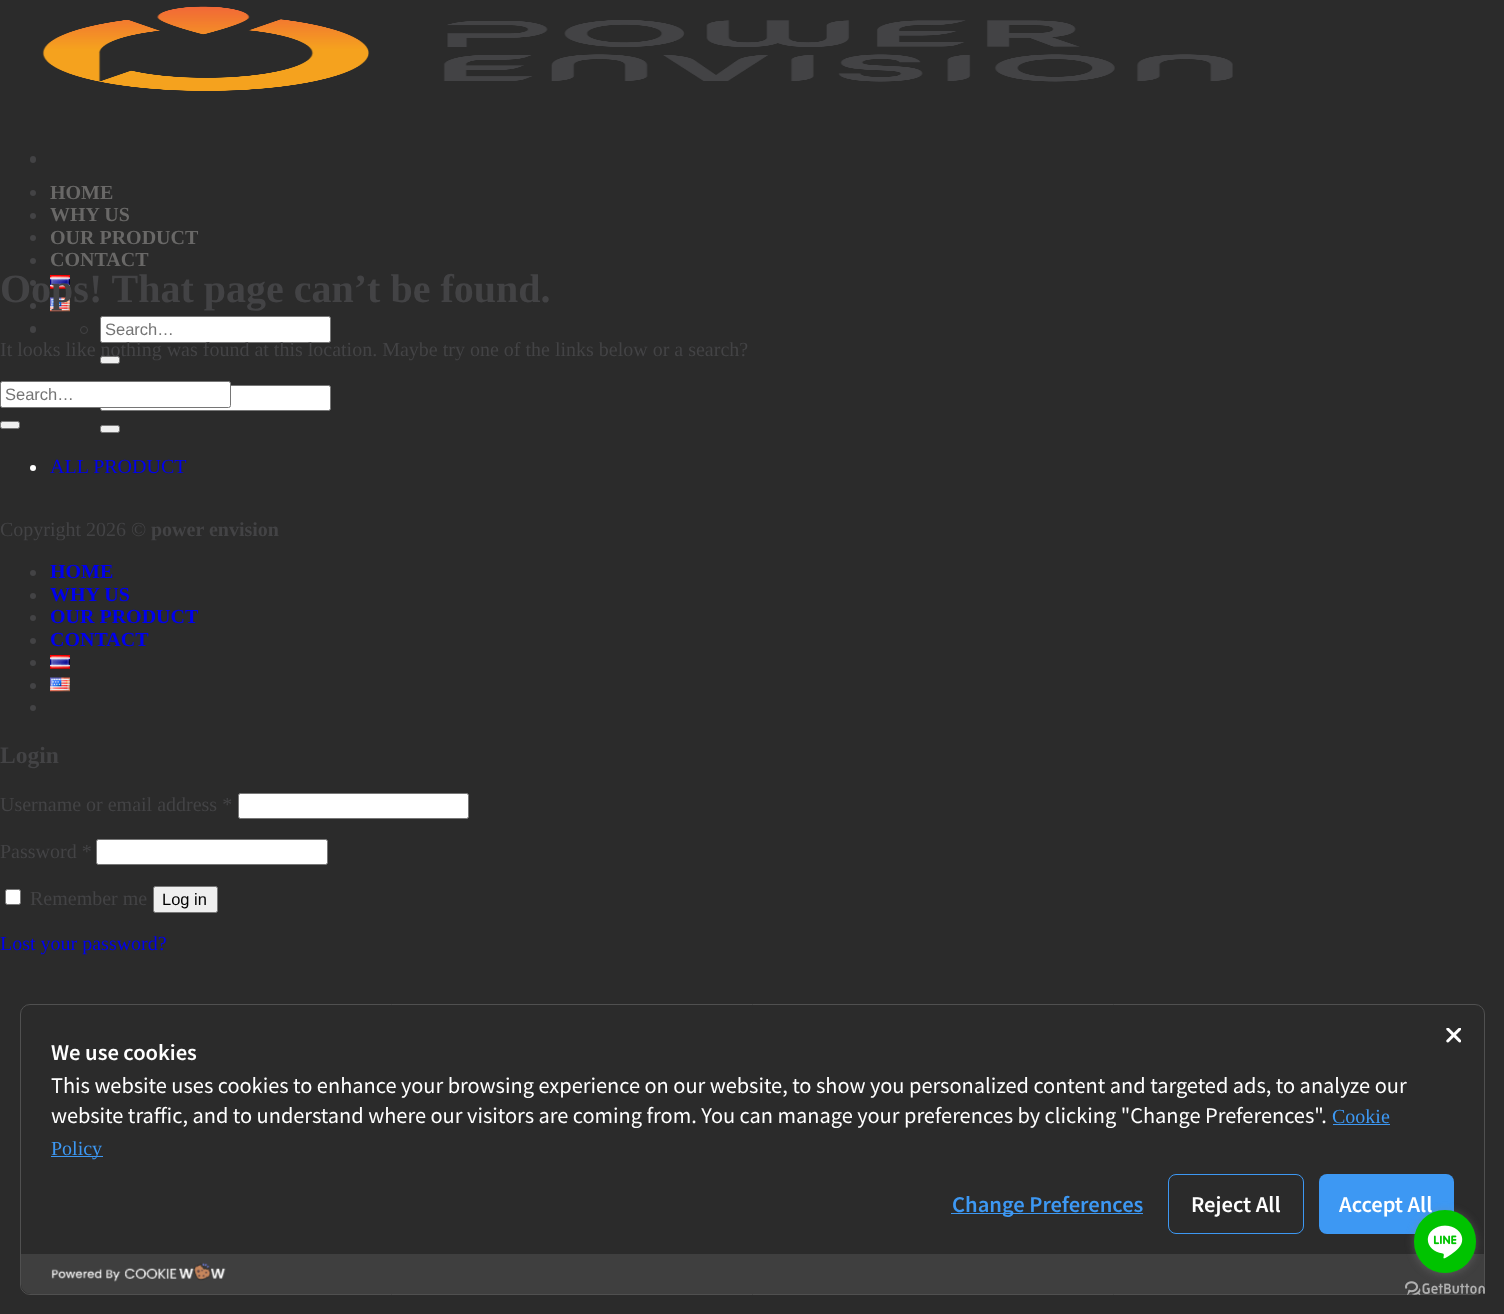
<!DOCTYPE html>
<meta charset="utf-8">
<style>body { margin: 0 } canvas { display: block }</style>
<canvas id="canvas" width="1504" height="1314"></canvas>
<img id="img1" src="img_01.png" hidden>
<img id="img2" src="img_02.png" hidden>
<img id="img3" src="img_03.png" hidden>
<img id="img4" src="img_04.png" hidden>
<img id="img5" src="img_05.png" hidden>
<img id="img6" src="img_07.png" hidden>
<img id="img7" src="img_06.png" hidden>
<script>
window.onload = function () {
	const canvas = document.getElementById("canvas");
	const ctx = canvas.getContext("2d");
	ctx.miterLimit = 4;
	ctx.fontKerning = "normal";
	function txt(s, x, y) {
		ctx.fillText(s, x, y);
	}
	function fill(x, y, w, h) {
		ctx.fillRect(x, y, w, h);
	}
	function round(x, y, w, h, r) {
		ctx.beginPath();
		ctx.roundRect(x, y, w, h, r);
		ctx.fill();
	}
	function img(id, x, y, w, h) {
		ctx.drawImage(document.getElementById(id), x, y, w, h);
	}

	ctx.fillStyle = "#2B2B2B";
	fill(0, 0, 1504, 1314);
	img("img1", 42, 6, 1191, 85);
	ctx.fillStyle = "#434345";
	round(30, 156, 6, 7, 3);
	ctx.beginPath();
	ctx.arc(33, 193, 3, 0, Math.PI * 2);
	ctx.fill();
	ctx.beginPath();
	ctx.arc(33, 216, 3, 0, Math.PI * 2);
	ctx.fill();
	ctx.beginPath();
	ctx.arc(33, 238, 3, 0, Math.PI * 2);
	ctx.fill();
	ctx.beginPath();
	ctx.arc(33, 261, 3, 0, Math.PI * 2);
	ctx.fill();
	ctx.beginPath();
	ctx.arc(33, 283, 3, 0, Math.PI * 2);
	ctx.fill();
	img("img2", 50, 275, 20, 14);
	ctx.beginPath();
	ctx.arc(33, 306, 3, 0, Math.PI * 2);
	ctx.fill();
	img("img3", 50, 297, 20, 15);
	round(30, 326, 6, 7, 3);
	ctx.beginPath();
	ctx.arc(84, 330, 3.5, 0, Math.PI * 2);
	ctx.strokeStyle = "#434345";
	ctx.stroke();
	ctx.fillStyle = "#FFFFFF";
	ctx.beginPath();
	ctx.roundRect(100.5, 316.5, 230, 26, 2);
	ctx.fill();
	ctx.strokeStyle = "#767676";
	ctx.stroke();
	ctx.fillStyle = "#EFEFEF";
	ctx.beginPath();
	ctx.roundRect(100.5, 356.5, 19, 7, 2);
	ctx.fill();
	ctx.stroke();
	ctx.fillStyle = "#FFFFFF";
	ctx.beginPath();
	ctx.roundRect(100.5, 385.5, 230, 25, 2);
	ctx.fill();
	ctx.stroke();
	ctx.fillStyle = "#EFEFEF";
	ctx.beginPath();
	ctx.roundRect(100.5, 425.5, 19, 7, 2);
	ctx.fill();
	ctx.stroke();
	ctx.fillStyle = "#FFFFFF";
	ctx.beginPath();
	ctx.roundRect(0.5, 381.5, 230, 26, 2);
	ctx.fill();
	ctx.stroke();
	ctx.fillStyle = "#EFEFEF";
	ctx.beginPath();
	ctx.roundRect(0.5, 421.5, 19, 7, 2);
	ctx.fill();
	ctx.stroke();
	ctx.fillStyle = "#FFFFFF";
	ctx.beginPath();
	ctx.arc(33, 468, 3, 0, Math.PI * 2);
	ctx.fill();
	ctx.fillStyle = "#434345";
	ctx.beginPath();
	ctx.arc(33, 573, 3, 0, Math.PI * 2);
	ctx.fill();
	ctx.beginPath();
	ctx.arc(33, 596, 3, 0, Math.PI * 2);
	ctx.fill();
	ctx.beginPath();
	ctx.arc(33, 618, 3, 0, Math.PI * 2);
	ctx.fill();
	ctx.beginPath();
	ctx.arc(33, 641, 3, 0, Math.PI * 2);
	ctx.fill();
	ctx.beginPath();
	ctx.arc(33, 663, 3, 0, Math.PI * 2);
	ctx.fill();
	img("img2", 50, 655, 20, 14);
	ctx.beginPath();
	ctx.arc(33, 686, 3, 0, Math.PI * 2);
	ctx.fill();
	img("img3", 50, 677, 20, 15);
	ctx.beginPath();
	ctx.arc(33, 708, 3, 0, Math.PI * 2);
	ctx.fill();
	ctx.fillStyle = "#FFFFFF";
	ctx.beginPath();
	ctx.roundRect(238.5, 793.5, 230, 25, 2);
	ctx.fill();
	ctx.stroke();
	ctx.beginPath();
	ctx.roundRect(96.5, 839.5, 231, 25, 2);
	ctx.fill();
	ctx.stroke();
	ctx.beginPath();
	ctx.roundRect(5.5, 889.5, 15, 15, 2);
	ctx.fill();
	ctx.stroke();
	ctx.fillStyle = "#EFEFEF";
	ctx.beginPath();
	ctx.roundRect(153.5, 886.5, 64, 26, 2);
	ctx.fill();
	ctx.stroke();
	ctx.beginPath();
	ctx.roundRect(20.5, 1004.5, 1464, 290, 9.5);
	ctx.strokeStyle = "#505050";
	ctx.stroke();
	img("img4", 1446, 1028, 15, 15);
	ctx.fillStyle = "#3D98F3";
	fill(1333, 1124, 57, 1);
	fill(51, 1156, 52, 1);
	fill(951, 1213, 192, 1);
	ctx.beginPath();
	ctx.roundRect(1168.5, 1174.5, 135, 59, 7.5);
	ctx.strokeStyle = "#3D98F3";
	ctx.stroke();
	round(1319, 1174, 135, 60, 8);
	ctx.fillStyle = "#3F3F3F";
	ctx.beginPath();
	ctx.roundRect(21, 1254, 1463, 40, [0, 0, 10, 10]);
	ctx.fill();
	img("img5", 51, 1262, 175, 20);
	img("img6", 1405, 1281, 80, 14);
	ctx.fillStyle = "rgba(136, 136, 136, 0.4)";
	ctx.filter = "blur(4.5px)";
	ctx.beginPath();
	ctx.roundRect(1414, 1211, 62, 63, 31);
	ctx.fill();
	ctx.filter = "none";
	ctx.font = "bold 20px Liberation Serif";
	ctx.fillStyle = "#696867";
	txt("HOME", 50, 199);
	txt("WHY US", 50, 221);
	txt("OUR PRODUCT", 50, 244);
	txt("CONTACT", 50, 266);
	ctx.font = "16.5px Liberation Sans";
	ctx.fillStyle = "#757575";
	txt("Search…", 105, 335);
	ctx.font = "bold 40px Liberation Serif";
	ctx.fillStyle = "#434345";
	txt("Oops! That page can’t be found.", 0, 302);
	ctx.font = "20px Liberation Serif";
	txt("It looks like nothing was found at this location. Maybe try one of the links below or a search?", 0, 356);
	ctx.font = "16.5px Liberation Sans";
	ctx.fillStyle = "#757575";
	txt("Search…", 5, 400);
	ctx.font = "20px Liberation Serif";
	ctx.fillStyle = "#0000EE";
	txt("ALL PRODUCT", 50, 473);
	ctx.fillStyle = "#434345";
	txt("Copyright 2026 ©", 0, 536);
	ctx.font = "bold 20px Liberation Serif";
	txt("power envision", 151, 536);
	ctx.fillStyle = "#0000EE";
	txt("HOME", 50, 578);
	txt("WHY US", 50, 601);
	txt("OUR PRODUCT", 50, 623);
	txt("CONTACT", 50, 646);
	ctx.font = "bold 23.5px Liberation Serif";
	ctx.fillStyle = "#434345";
	txt("Login", 0, 763);
	ctx.font = "20px Liberation Serif";
	txt("Username or email address *", 0, 811);
	txt("Password *", 0, 858);
	txt("Remember me", 30, 905);
	ctx.font = "16.5px Liberation Sans";
	ctx.fillStyle = "#000000";
	txt("Log in", 162, 905);
	ctx.font = "20px Liberation Serif";
	ctx.fillStyle = "#0000EE";
	txt("Lost your password?", 0, 950);
	ctx.font = "600 20px Noto Sans JP";
	ctx.fillStyle = "#FFFFFF";
	txt("We use cookies", 51, 1060);
	ctx.font = "20px Noto Sans JP";
	txt("This website uses cookies to enhance your browsing experience on our website, to show you personalized content and targeted ads, to analyze our", 51, 1093);
	txt("website traffic, and to understand where our visitors are coming from. You can manage your preferences by clicking \"Change Preferences\".", 51, 1123);
	ctx.font = "20px Liberation Serif";
	ctx.fillStyle = "#3D98F3";
	txt("Cookie", 1332, 1123);
	txt("Policy", 51, 1155);
	ctx.font = "600 20px Noto Sans JP";
	txt("Change Preferences", 952, 1212);
	ctx.fillStyle = "#FFFFFF";
	txt("Reject All", 1191, 1212);
	txt("Accept All", 1339, 1212);
	ctx.fillStyle = "#00C300";
	round(1414, 1210, 62, 63, 31);
	img("img7", 1427, 1225, 36, 34);
};
</script>
